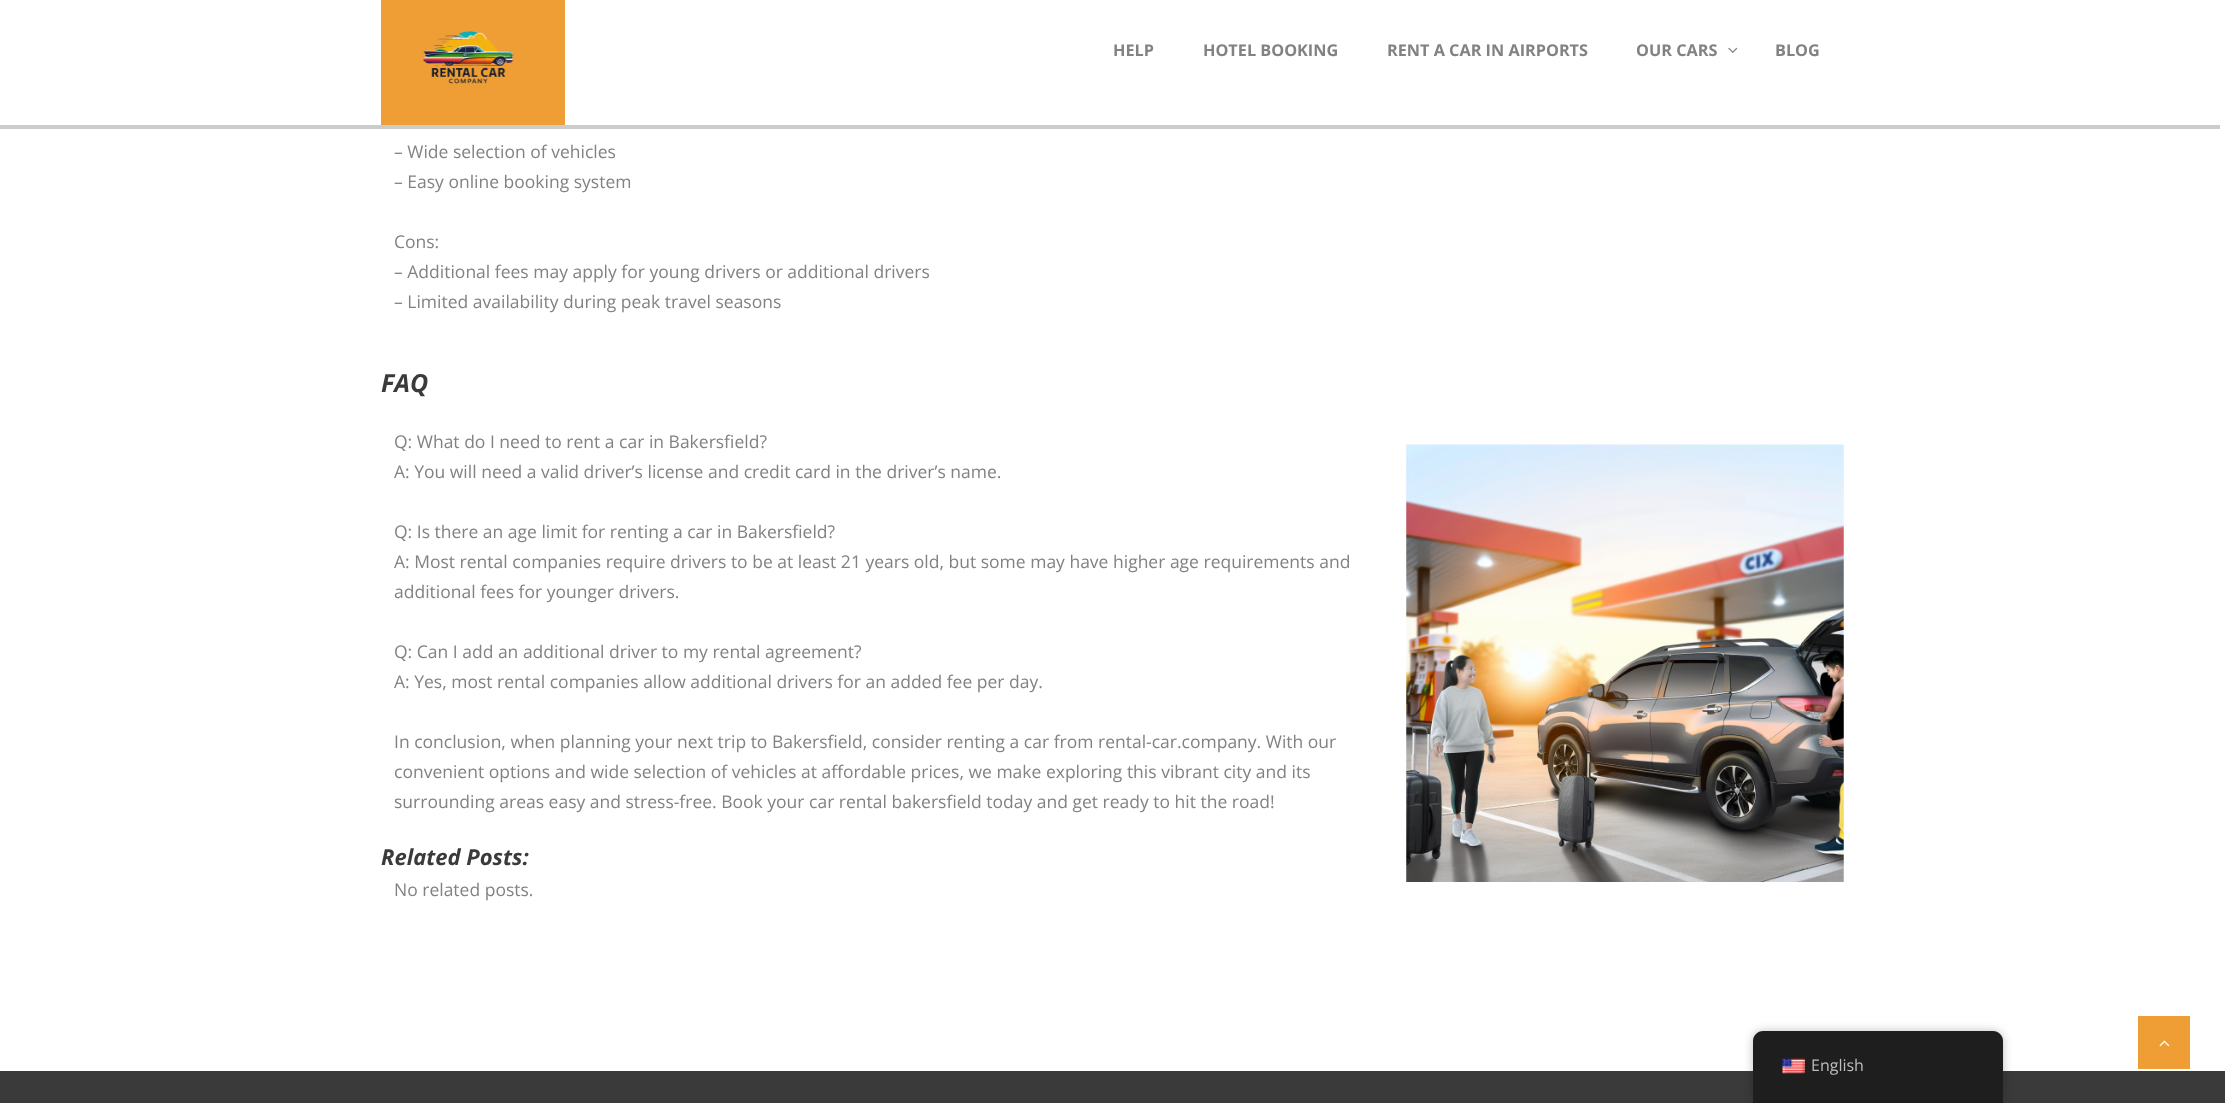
<!DOCTYPE html>
<meta charset="utf-8">
<style>body { margin: 0 } canvas { display: block }</style>
<canvas id="canvas" width="2225" height="1103"></canvas>
<img id="img1" src="img_01.png" hidden>
<img id="img2" src="img_02.png" hidden>
<img id="img3" src="img_03.png" hidden>
<img id="img4" src="img_04.png" hidden>
<img id="img5" src="img_05.png" hidden>
<script>
window.onload = function () {
	const canvas = document.getElementById("canvas");
	const ctx = canvas.getContext("2d");
	ctx.miterLimit = 4;
	ctx.fontKerning = "normal";
	function txt(s, x, y) {
		ctx.fillText(s, x, y);
	}
	function fill(x, y, w, h) {
		ctx.fillRect(x, y, w, h);
	}
	function img(id, x, y, w, h) {
		ctx.drawImage(document.getElementById(id), x, y, w, h);
	}

	ctx.fillStyle = "#FFFFFF";
	fill(0, 0, 2225, 1103);
	ctx.fillStyle = "rgba(0, 0, 0, 0.2)";
	ctx.beginPath();
	ctx.moveTo(-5, 4);
	ctx.lineTo(-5, 129);
	ctx.lineTo(2220, 129);
	ctx.lineTo(2220, 125);
	ctx.lineTo(0, 125);
	ctx.lineTo(0, 4);
	ctx.closePath();
	ctx.fill();
	ctx.fillStyle = "#EF9E36";
	fill(381, 0, 184, 125);
	img("img1", 423, 31, 91, 53);
	img("img2", 1728, 47, 10, 6);
	img("img3", 1406, 444, 438, 438);
	ctx.fillStyle = "#3A3A3A";
	fill(0, 1071, 2225, 32);
	ctx.fillStyle = "rgba(0, 0, 0, 0.25)";
	ctx.filter = "blur(5px)";
	ctx.beginPath();
	ctx.roundRect(1753, 1031, 250, 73, 10);
	ctx.fill();
	ctx.filter = "none";
	ctx.fillStyle = "#1E1E1E";
	ctx.beginPath();
	ctx.moveTo(1763, 1031);
	ctx.lineTo(1993, 1031);
	ctx.bezierCurveTo(1998.5, 1031, 2003, 1035.5, 2003, 1041);
	ctx.lineTo(2003, 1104);
	ctx.lineTo(1753, 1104);
	ctx.lineTo(1753, 1041);
	ctx.bezierCurveTo(1753, 1035.5, 1757.5, 1031, 1763, 1031);
	ctx.closePath();
	ctx.fill();
	img("img4", 1782, 1058, 23, 16);
	ctx.fillStyle = "#EF9E36";
	fill(2138, 1016, 52, 53);
	img("img5", 2159, 1040, 11, 7);
	ctx.font = "bold 16.25px Open Sans";
	ctx.fillStyle = "#828282";
	txt("HELP", 1113, 56);
	txt("HOTEL BOOKING", 1203, 56);
	txt("RENT A CAR IN AIRPORTS", 1387, 56);
	txt("OUR CARS", 1636, 56);
	txt("BLOG", 1775, 56);
	ctx.font = "17.5px Open Sans";
	txt("– Wide selection of vehicles", 394, 158);
	txt("– Easy online booking system", 394, 188);
	txt("Cons:", 394, 248);
	txt("– Additional fees may apply for young drivers or additional drivers", 394, 278);
	txt("– Limited availability during peak travel seasons", 394, 308);
	ctx.font = "italic bold 25px Open Sans";
	ctx.fillStyle = "#3A3A3A";
	txt("FAQ", 381, 392);
	ctx.font = "17.5px Open Sans";
	ctx.fillStyle = "#828282";
	txt("Q: What do I need to rent a car in Bakersfield?", 394, 448);
	txt("A: You will need a valid driver’s license and credit card in the driver’s name.", 394, 478);
	txt("Q: Is there an age limit for renting a car in Bakersfield?", 394, 538);
	txt("A: Most rental companies require drivers to be at least 21 years old, but some may have higher age requirements and", 394, 568);
	txt("additional fees for younger drivers.", 394, 598);
	txt("Q: Can I add an additional driver to my rental agreement?", 394, 658);
	txt("A: Yes, most rental companies allow additional drivers for an added fee per day.", 394, 688);
	txt("In conclusion, when planning your next trip to Bakersfield, consider renting a car from rental-car.company. With our", 394, 748);
	txt("convenient options and wide selection of vehicles at affordable prices, we make exploring this vibrant city and its", 394, 778);
	txt("surrounding areas easy and stress-free. Book your car rental bakersfield today and get ready to hit the road!", 394, 808);
	ctx.font = "italic bold 22px Open Sans";
	ctx.fillStyle = "#3A3A3A";
	txt("Related Posts:", 381, 865);
	ctx.font = "17.5px Open Sans";
	ctx.fillStyle = "#828282";
	txt("No related posts.", 394, 896);
	ctx.font = "16px Open Sans";
	ctx.fillStyle = "#BDBDBD";
	txt("English", 1811, 1071);
};
</script>
